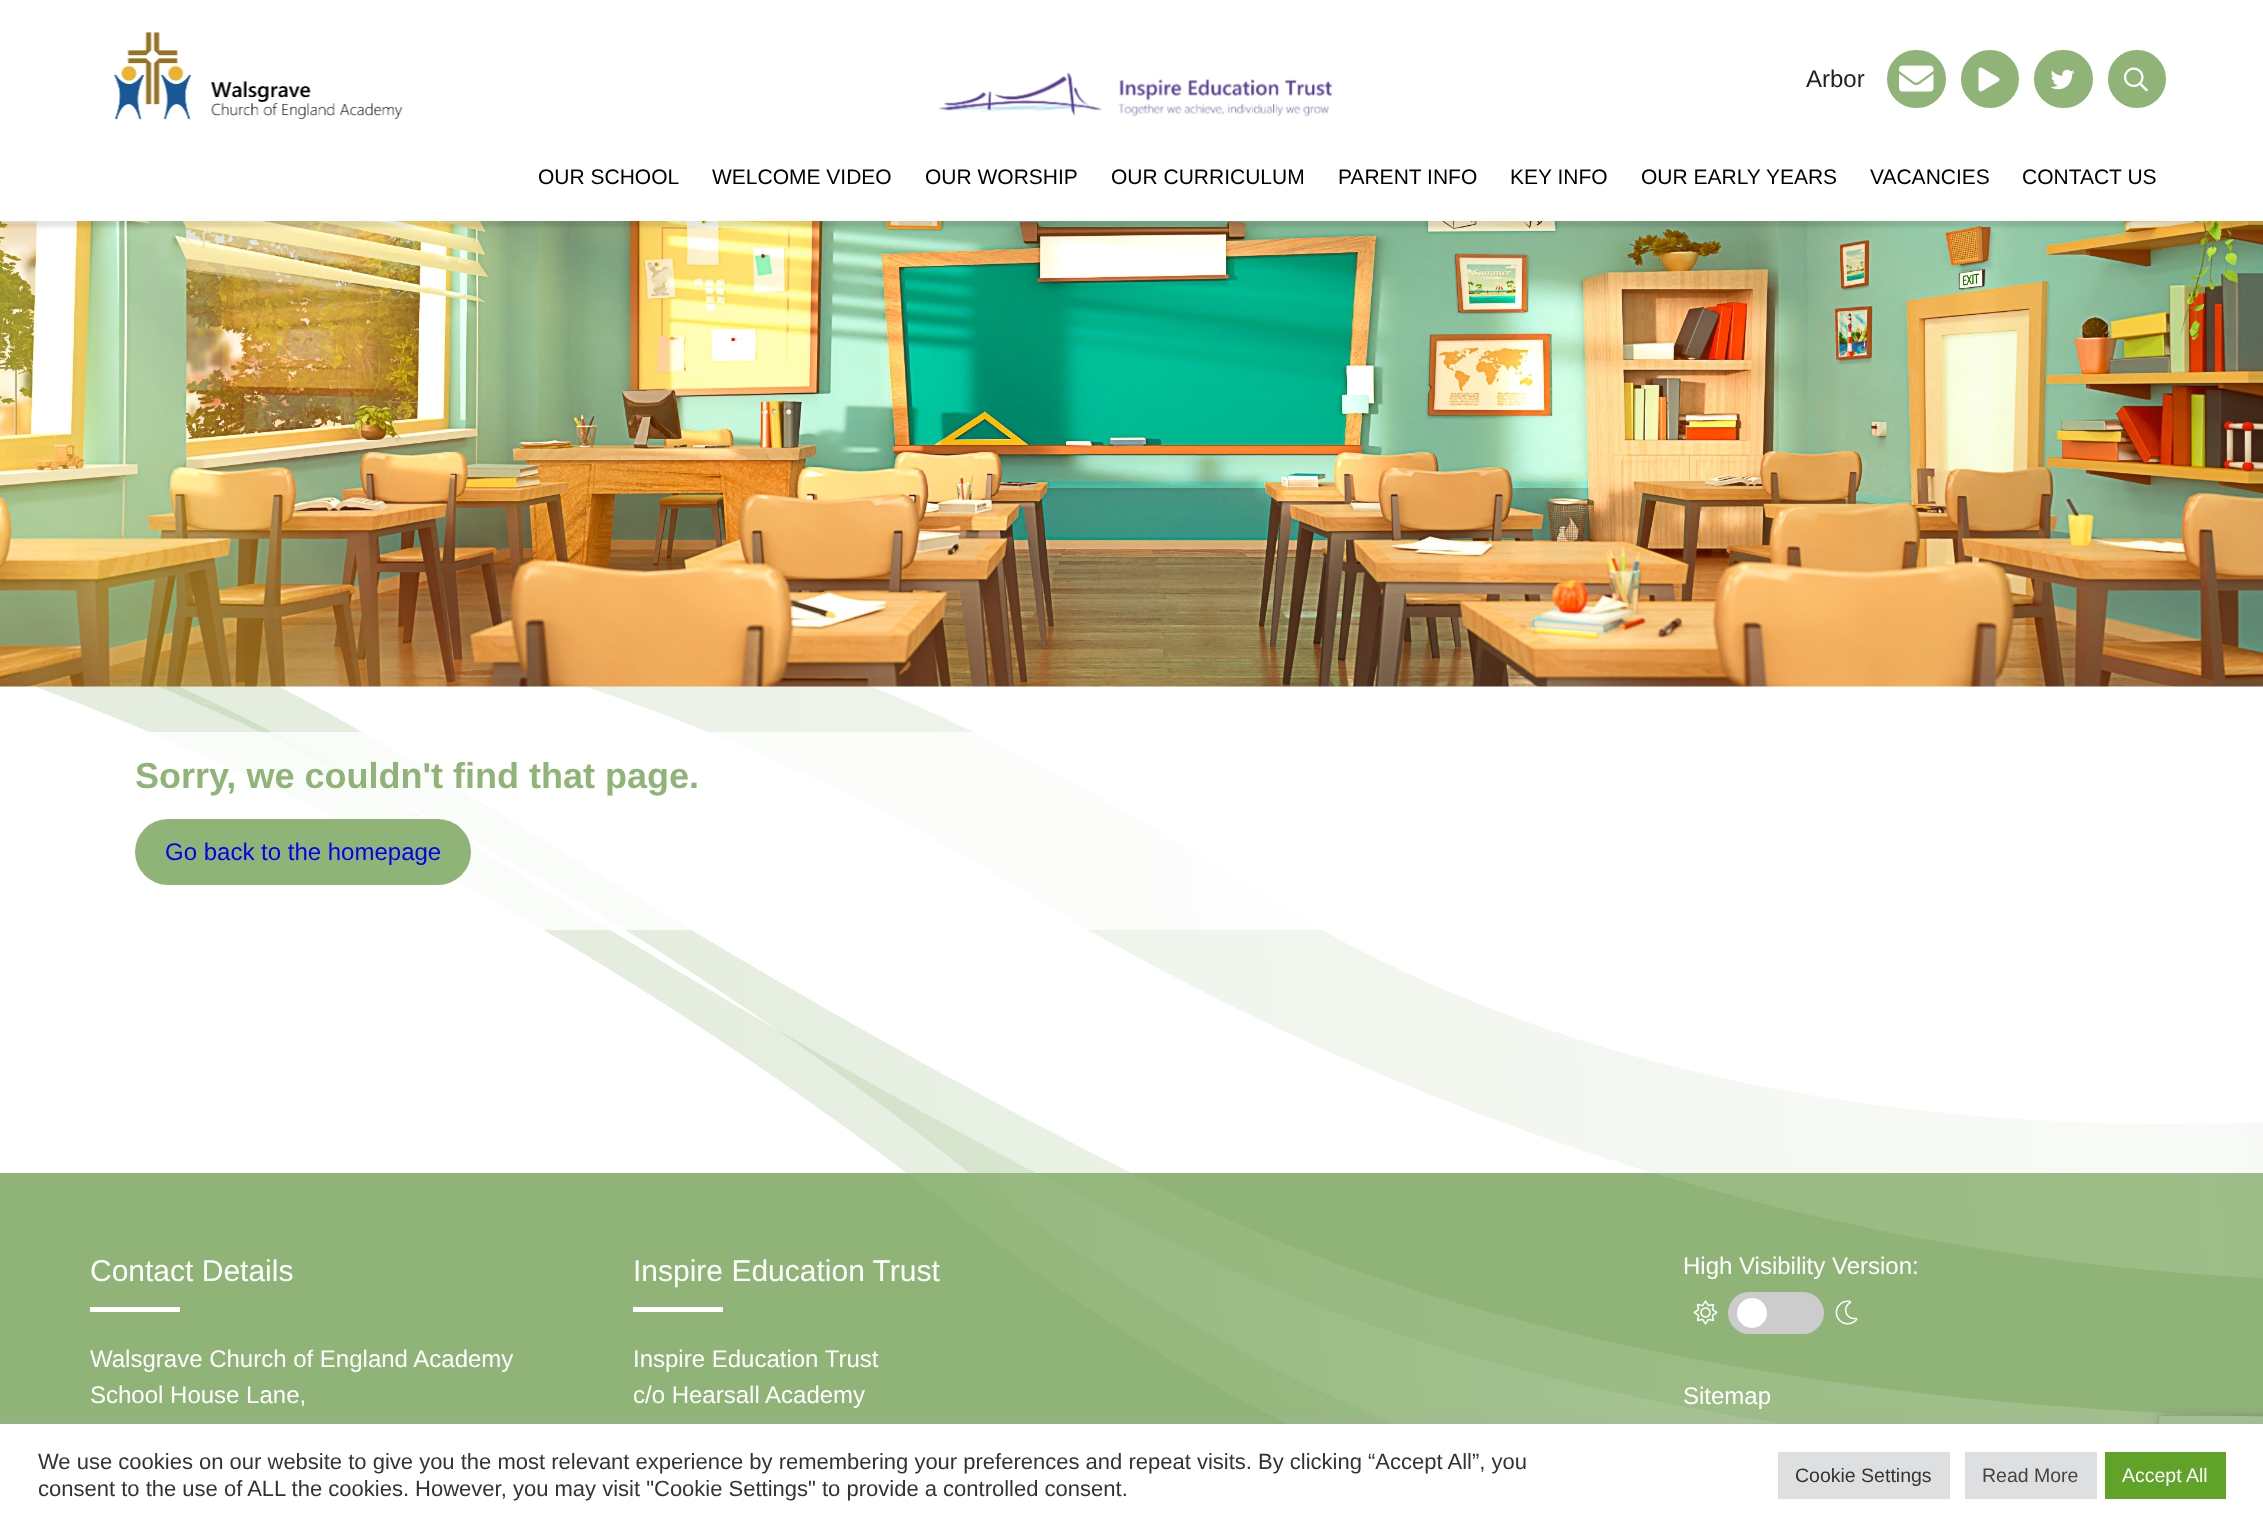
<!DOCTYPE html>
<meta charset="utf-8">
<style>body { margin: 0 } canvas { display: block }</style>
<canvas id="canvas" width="2263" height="1527"></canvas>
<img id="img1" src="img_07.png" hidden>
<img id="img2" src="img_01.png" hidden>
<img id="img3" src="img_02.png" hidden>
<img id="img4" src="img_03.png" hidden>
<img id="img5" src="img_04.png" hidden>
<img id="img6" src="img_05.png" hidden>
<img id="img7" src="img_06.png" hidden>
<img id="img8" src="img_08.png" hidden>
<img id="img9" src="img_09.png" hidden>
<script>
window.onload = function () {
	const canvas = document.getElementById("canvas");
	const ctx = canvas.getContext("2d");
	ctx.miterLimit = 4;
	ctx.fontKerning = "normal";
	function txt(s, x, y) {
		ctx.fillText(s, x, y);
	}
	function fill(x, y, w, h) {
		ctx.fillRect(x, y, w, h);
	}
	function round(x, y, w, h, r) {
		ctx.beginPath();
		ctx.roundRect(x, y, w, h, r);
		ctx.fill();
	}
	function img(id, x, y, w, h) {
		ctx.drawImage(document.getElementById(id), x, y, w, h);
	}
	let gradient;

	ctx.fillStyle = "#FFFFFF";
	fill(0, 0, 2263, 1527);
	ctx.fillStyle = "#90B477";
	fill(0, 1173, 2263, 251);
	gradient = ctx.createLinearGradient(-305, 1031, 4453, 537);
	gradient.addColorStop(0, "rgba(144, 180, 119, 0.18)");
	gradient.addColorStop(0.2, "rgba(144, 180, 119, 0.18)");
	gradient.addColorStop(0.52, "rgba(222, 233, 215, 0.18)");
	gradient.addColorStop(0.81, "rgba(0, 0, 0, 0.18)");
	gradient.addColorStop(1, "rgba(0, 0, 0, 0.18)");
	ctx.fillStyle = gradient;
	ctx.beginPath();
	ctx.moveTo(-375, 507);
	ctx.bezierCurveTo(-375, 507, 442, 366, 1240, 881);
	ctx.bezierCurveTo(2096, 1438, 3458, 873, 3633, 798);
	ctx.bezierCurveTo(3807, 723, 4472, 333, 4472, 333);
	ctx.lineTo(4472, 466);
	ctx.bezierCurveTo(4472, 466, 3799, 898, 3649, 964);
	ctx.bezierCurveTo(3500, 1031, 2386, 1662, 1090, 931);
	ctx.bezierCurveTo(260, 399, -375, 655, -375, 655);
	ctx.closePath();
	ctx.fill();
	gradient = ctx.createLinearGradient(-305, 1188, 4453, 694);
	gradient.addColorStop(0, "rgba(144, 180, 119, 0.24)");
	gradient.addColorStop(0.2, "rgba(144, 180, 119, 0.24)");
	gradient.addColorStop(0.52, "rgba(222, 233, 215, 0.24)");
	gradient.addColorStop(0.81, "rgba(0, 0, 0, 0.24)");
	gradient.addColorStop(1, "rgba(0, 0, 0, 0.24)");
	ctx.fillStyle = gradient;
	ctx.beginPath();
	ctx.moveTo(-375, 512);
	ctx.bezierCurveTo(-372, 492, -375, 490, -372, 492);
	ctx.bezierCurveTo(293, 575, 393, 808, 1182, 1198);
	ctx.bezierCurveTo(1971, 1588, 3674, 1447, 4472, 882);
	ctx.lineTo(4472, 1023);
	ctx.bezierCurveTo(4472, 1023, 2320, 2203, 991, 1190);
	ctx.bezierCurveTo(310, 641, -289, 542, -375, 512);
	ctx.closePath();
	ctx.fill();
	gradient = ctx.createLinearGradient(-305, 1237, 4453, 743);
	gradient.addColorStop(0, "rgba(144, 180, 119, 0.24)");
	gradient.addColorStop(0.2, "rgba(144, 180, 119, 0.24)");
	gradient.addColorStop(0.52, "rgba(222, 233, 215, 0.24)");
	gradient.addColorStop(0.81, "rgba(0, 0, 0, 0.24)");
	gradient.addColorStop(1, "rgba(0, 0, 0, 0.24)");
	ctx.fillStyle = gradient;
	ctx.beginPath();
	ctx.moveTo(-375, 561);
	ctx.bezierCurveTo(-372, 541, -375, 540, -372, 541);
	ctx.bezierCurveTo(293, 624, 393, 857, 1182, 1247);
	ctx.bezierCurveTo(1971, 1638, 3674, 1497, 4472, 932);
	ctx.lineTo(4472, 1073);
	ctx.bezierCurveTo(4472, 1073, 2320, 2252, 991, 1239);
	ctx.bezierCurveTo(310, 691, -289, 591, -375, 561);
	ctx.closePath();
	ctx.fill();
	img("img1", 0, 221, 2263, 466);
	ctx.fillStyle = "rgba(0, 0, 0, 0.1)";
	ctx.filter = "blur(1.5px)";
	ctx.beginPath();
	ctx.rect(0, 6, 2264, 221);
	ctx.fill();
	ctx.filter = "none";
	ctx.fillStyle = "#FFFFFF";
	fill(0, 4, 2263, 217);
	img("img2", 113, 32, 290, 88);
	img("img3", 938, 72, 395, 45);
	ctx.fillStyle = "#90B477";
	ctx.beginPath();
	ctx.roundRect(1888.5, 51.5, 56, 55, 27.5);
	ctx.fill();
	ctx.strokeStyle = "#90B477";
	ctx.lineWidth = 3;
	ctx.stroke();
	img("img4", 1899, 65, 35, 27);
	ctx.beginPath();
	ctx.arc(1990, 79, 27.5, 0, Math.PI * 2);
	ctx.fill();
	ctx.stroke();
	img("img5", 1978, 67, 22, 25);
	ctx.beginPath();
	ctx.roundRect(2035.5, 51.5, 56, 55, 27.5);
	ctx.fill();
	ctx.stroke();
	img("img6", 2050, 69, 25, 21);
	ctx.beginPath();
	ctx.arc(2137, 79, 27.5, 0, Math.PI * 2);
	ctx.fill();
	ctx.stroke();
	img("img7", 2124, 67, 24, 25);
	ctx.fillStyle = "rgba(255, 255, 255, 0.8)";
	fill(149, 732, 1172, 198);
	ctx.fillStyle = "#90B477";
	round(135, 819, 336, 66, 33);
	ctx.fillStyle = "#FFFFFF";
	fill(90, 1307, 90, 5);
	fill(633, 1307, 90, 5);
	img("img8", 1693, 1300, 25, 25);
	ctx.fillStyle = "#CCCCCC";
	round(1728, 1292, 96, 42, 21);
	ctx.fillStyle = "#FFFFFF";
	ctx.beginPath();
	ctx.arc(1752, 1313, 15, 0, Math.PI * 2);
	ctx.fill();
	img("img9", 1835, 1300, 23, 25);
	ctx.save();
	ctx.beginPath();
	ctx.moveTo(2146, 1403);
	ctx.lineTo(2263, 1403);
	ctx.lineTo(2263, 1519);
	ctx.lineTo(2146, 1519);
	ctx.closePath();
	ctx.moveTo(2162, 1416);
	ctx.lineTo(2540, 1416);
	ctx.bezierCurveTo(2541.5, 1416, 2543, 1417.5, 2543, 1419);
	ctx.lineTo(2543, 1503);
	ctx.bezierCurveTo(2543, 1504.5, 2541.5, 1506, 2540, 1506);
	ctx.lineTo(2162, 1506);
	ctx.bezierCurveTo(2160.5, 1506, 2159, 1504.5, 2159, 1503);
	ctx.lineTo(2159, 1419);
	ctx.bezierCurveTo(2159, 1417.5, 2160.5, 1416, 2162, 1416);
	ctx.closePath();
	ctx.clip("evenodd");
	ctx.fillStyle = "#808080";
	ctx.filter = "blur(4px)";
	ctx.beginPath();
	ctx.roundRect(2159, 1416, 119, 90, 3);
	ctx.fill();
	ctx.filter = "none";
	ctx.restore();
	ctx.fillStyle = "rgba(172, 171, 171, 0.3)";
	ctx.filter = "blur(7.5px)";
	ctx.beginPath();
	ctx.rect(0, 1422, 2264, 104);
	ctx.fill();
	ctx.filter = "none";
	ctx.fillStyle = "#FFFFFF";
	fill(0, 1424, 2263, 103);
	ctx.fillStyle = "#DEDFE0";
	fill(1778, 1452, 172, 47);
	fill(1965, 1452, 132, 47);
	ctx.fillStyle = "#61A229";
	fill(2105, 1452, 121, 47);
	ctx.font = "24px Liberation Sans";
	ctx.fillStyle = "#231F20";
	txt("Arbor", 1806, 87);
	ctx.font = "21px Liberation Sans";
	ctx.fillStyle = "#000000";
	txt("OUR SCHOOL", 538, 184);
	txt("WELCOME VIDEO", 712, 184);
	txt("OUR WORSHIP", 925, 184);
	txt("OUR CURRICULUM", 1111, 184);
	txt("PARENT INFO", 1338, 184);
	txt("KEY INFO", 1510, 184);
	txt("OUR EARLY YEARS", 1641, 184);
	txt("VACANCIES", 1870, 184);
	txt("CONTACT US", 2022, 184);
	ctx.font = "bold 36px Liberation Sans";
	ctx.fillStyle = "#90B477";
	txt("Sorry, we couldn't find that page.", 135, 788);
	ctx.font = "24px Liberation Sans";
	ctx.fillStyle = "#0000EE";
	txt("Go back to the homepage", 165, 860);
	ctx.font = "30px Liberation Sans";
	ctx.fillStyle = "#FFFFFF";
	txt("Contact Details", 90, 1281);
	ctx.font = "24px Liberation Sans";
	txt("Walsgrave Church of England Academy", 90, 1367);
	txt("School House Lane,", 90, 1403);
	ctx.font = "30px Liberation Sans";
	txt("Inspire Education Trust", 633, 1281);
	ctx.font = "24px Liberation Sans";
	txt("Inspire Education Trust", 633, 1367);
	txt("c/o Hearsall Academy", 633, 1403);
	txt("High Visibility Version:", 1683, 1274);
	txt("Sitemap", 1683, 1404);
	ctx.font = "22px Liberation Sans";
	ctx.fillStyle = "#333333";
	txt("We use cookies on our website to give you the most relevant experience by remembering your preferences and repeat visits. By clicking “Accept All”, you", 38, 1469);
	txt("consent to the use of ALL the cookies. However, you may visit \"Cookie Settings\" to provide a controlled consent.", 38, 1496);
	ctx.font = "19.5px Liberation Sans";
	txt("Cookie Settings", 1795, 1482);
	ctx.fillStyle = "#444444";
	txt("Read More", 1982, 1482);
	ctx.fillStyle = "#FFFFFF";
	txt("Accept All", 2122, 1482);
};
</script>
